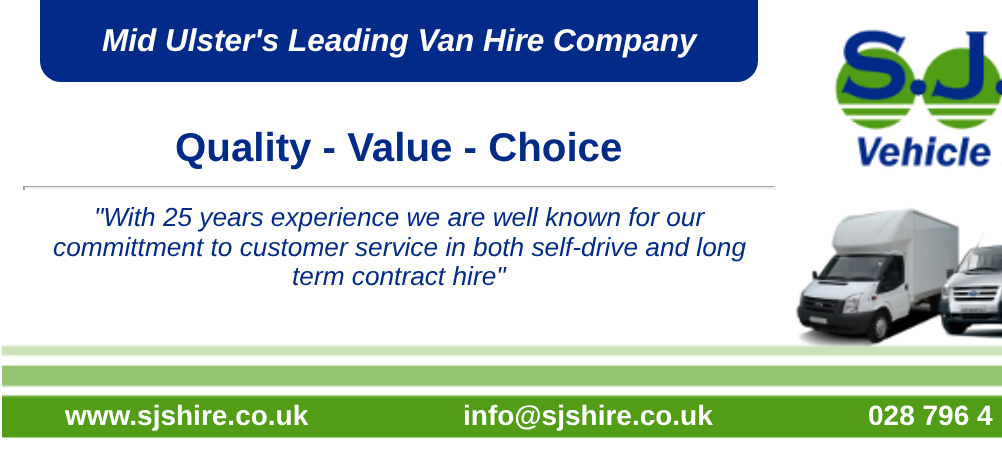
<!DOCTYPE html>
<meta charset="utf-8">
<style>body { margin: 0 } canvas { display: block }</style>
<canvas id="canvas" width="1002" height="461"></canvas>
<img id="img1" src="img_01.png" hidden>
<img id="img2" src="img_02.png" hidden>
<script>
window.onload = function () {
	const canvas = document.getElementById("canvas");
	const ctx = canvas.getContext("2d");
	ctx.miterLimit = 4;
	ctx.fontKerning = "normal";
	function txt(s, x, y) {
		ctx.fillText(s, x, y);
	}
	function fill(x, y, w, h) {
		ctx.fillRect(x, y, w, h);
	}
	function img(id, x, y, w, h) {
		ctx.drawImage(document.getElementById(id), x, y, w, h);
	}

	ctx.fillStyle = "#FFFFFF";
	fill(0, 0, 1002, 461);
	img("img1", 2, 344, 1000, 94);
	ctx.fillStyle = "#022A89";
	ctx.beginPath();
	ctx.roundRect(40, 0, 718, 82, [0, 0, 21, 21]);
	ctx.fill();
	ctx.fillStyle = "#9F9F9F";
	fill(23, 186, 752, 1);
	ctx.fillStyle = "#EEEEEE";
	fill(774, 186, 2, 4);
	fill(23, 187, 752, 2);
	ctx.fillStyle = "#9F9F9F";
	fill(23, 186, 2, 4);
	img("img2", 796, 29, 206, 318);
	ctx.font = "italic bold 31.5px Liberation Sans";
	ctx.fillStyle = "#FFFFFF";
	txt("Mid Ulster's Leading Van Hire Company", 102, 51);
	ctx.font = "bold 40.25px Liberation Sans";
	ctx.fillStyle = "#022A89";
	txt("Quality - Value - Choice", 175, 161);
	ctx.font = "italic 26.25px Liberation Sans";
	txt("\"With 25 years experience we are well known for our", 94, 226);
	txt("committment to customer service in both self-drive and long", 53, 256);
	txt("term contract hire\"", 292, 285);
	ctx.font = "bold 28px Liberation Sans";
	ctx.fillStyle = "#FFFFFF";
	txt("www.sjshire.co.uk", 65, 425);
	txt("info@sjshire.co.uk", 463, 425);
	txt("028 796 4", 868, 425);
};
</script>
